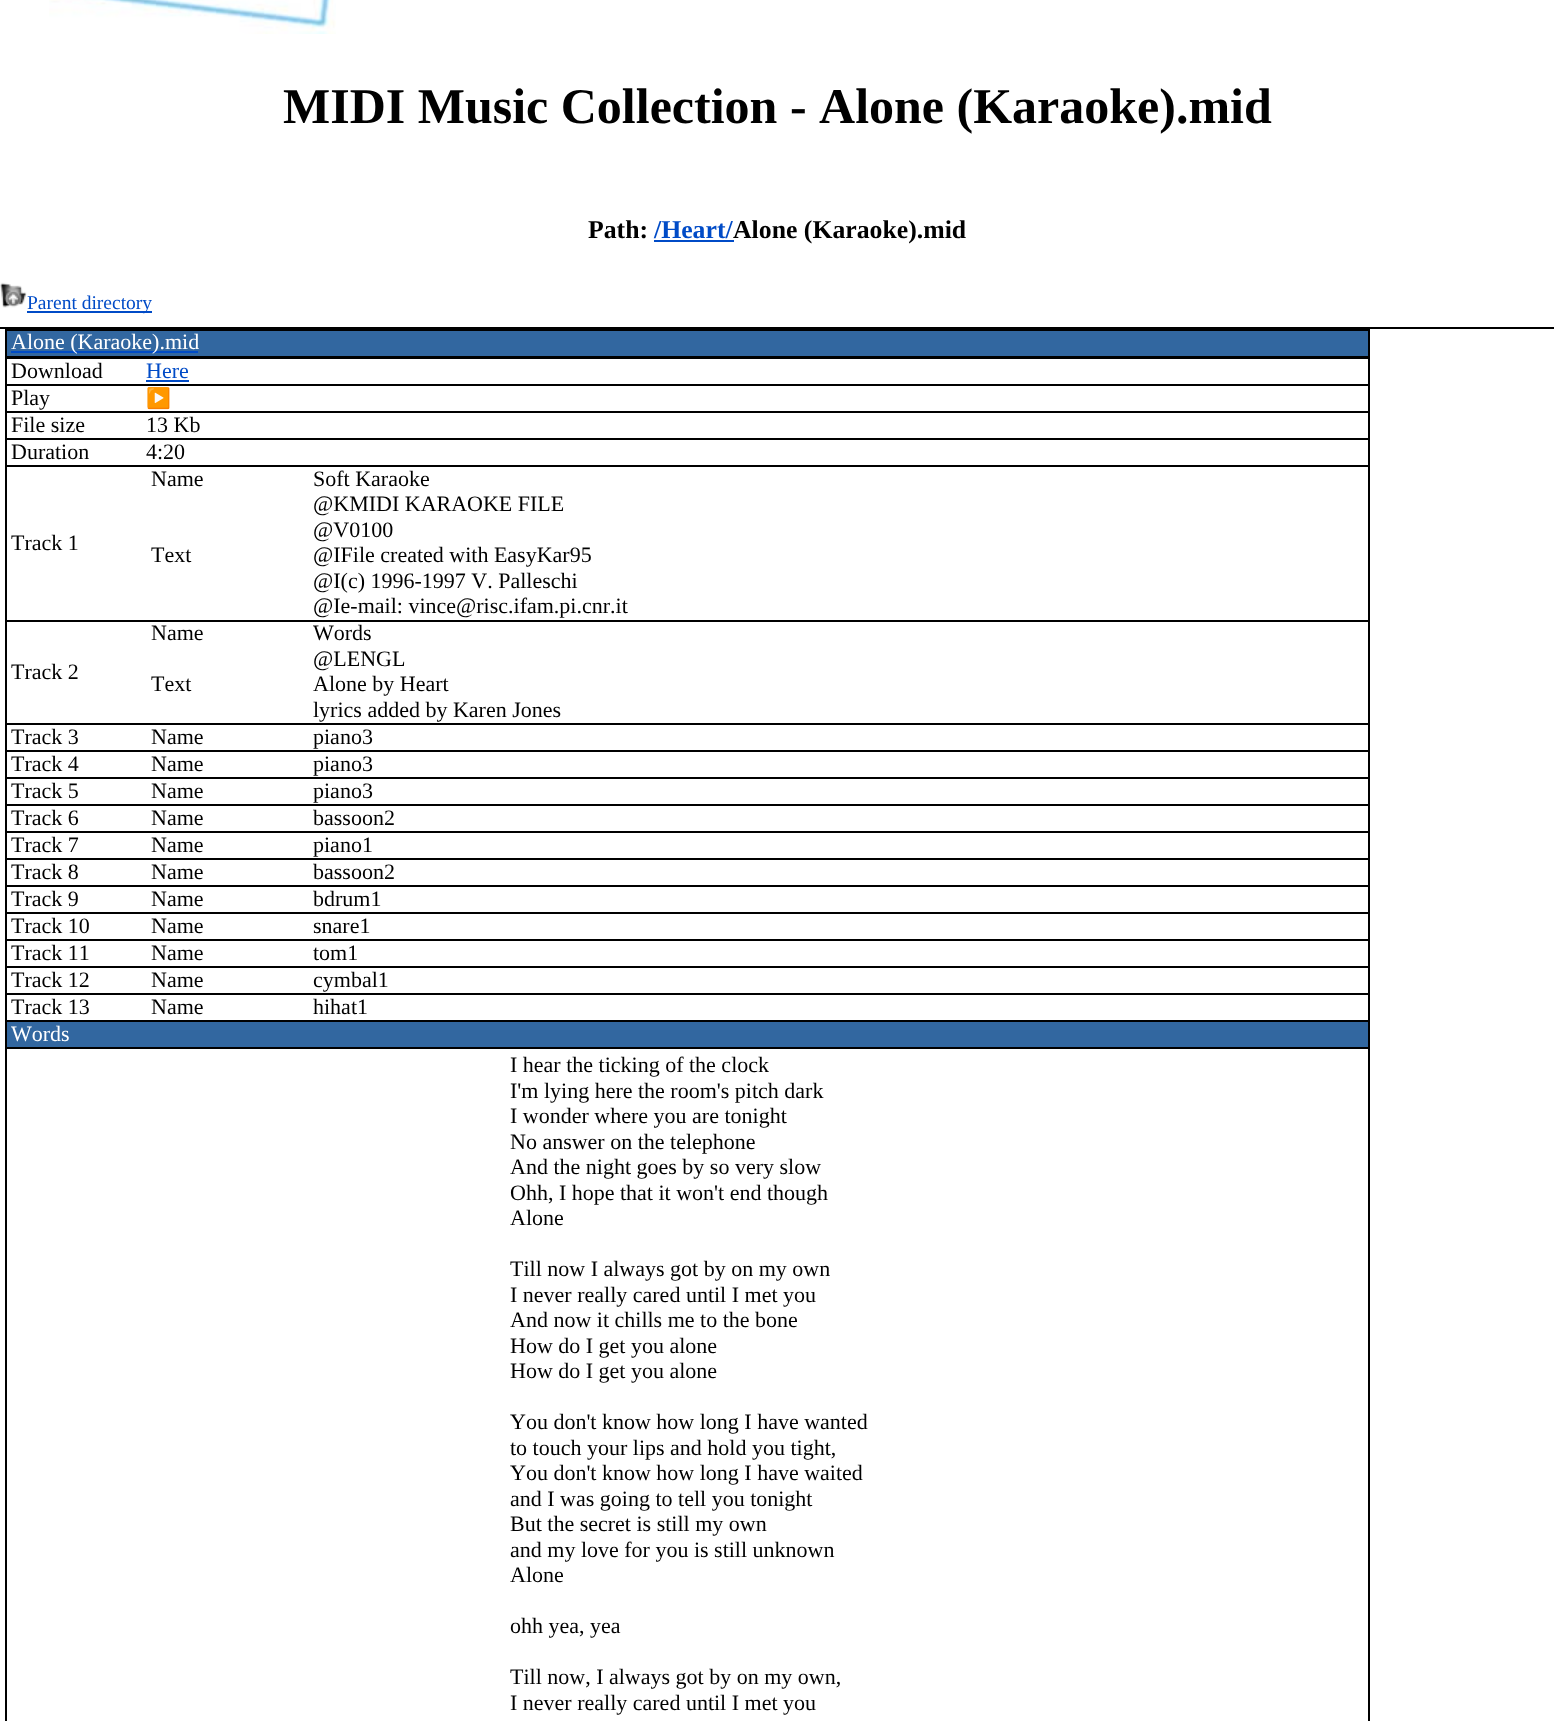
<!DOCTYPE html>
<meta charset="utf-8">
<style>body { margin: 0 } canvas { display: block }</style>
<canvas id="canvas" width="1554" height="1721"></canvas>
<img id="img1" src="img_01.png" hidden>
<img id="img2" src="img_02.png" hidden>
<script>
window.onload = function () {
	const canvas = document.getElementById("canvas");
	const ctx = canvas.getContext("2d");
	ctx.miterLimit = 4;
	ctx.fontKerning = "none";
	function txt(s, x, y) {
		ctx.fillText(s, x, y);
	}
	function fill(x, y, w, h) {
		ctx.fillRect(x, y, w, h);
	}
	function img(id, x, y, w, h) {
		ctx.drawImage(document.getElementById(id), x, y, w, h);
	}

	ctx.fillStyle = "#FFFFFF";
	fill(0, 0, 1554, 1721);
	img("img1", 49, 0, 287, 34);
	ctx.fillStyle = "#004BC7";
	fill(654, 240, 80, 2);
	img("img2", 0, 282, 27, 26);
	fill(27, 311, 125, 2);
	ctx.fillStyle = "#000000";
	fill(0, 327, 1554, 2);
	fill(5, 329, 1365, 2);
	fill(1368, 329, 2, 1392);
	fill(5, 329, 2, 1392);
	ctx.fillStyle = "#3267A0";
	fill(7, 331, 1361, 25);
	ctx.fillStyle = "#004BC7";
	fill(11, 351, 187, 2);
	ctx.fillStyle = "#000000";
	fill(5, 356, 1365, 2);
	fill(5, 358, 1365, 1);
	ctx.fillStyle = "#004BC7";
	fill(146, 380, 43, 2);
	ctx.fillStyle = "#000000";
	fill(5, 384, 1365, 2);
	fill(5, 411, 1365, 2);
	fill(5, 438, 1365, 2);
	fill(5, 465, 1365, 2);
	fill(5, 620, 1365, 2);
	fill(5, 723, 1365, 2);
	fill(5, 750, 1365, 2);
	fill(5, 777, 1365, 2);
	fill(5, 804, 1365, 2);
	fill(5, 831, 1365, 2);
	fill(5, 858, 1365, 2);
	fill(5, 885, 1365, 2);
	fill(5, 912, 1365, 2);
	fill(5, 939, 1365, 2);
	fill(5, 966, 1365, 2);
	fill(5, 993, 1365, 2);
	ctx.fillStyle = "#3267A0";
	fill(7, 1022, 1361, 25);
	ctx.fillStyle = "#000000";
	fill(5, 1020, 1365, 2);
	fill(5, 1047, 1365, 2);
	ctx.font = "bold 50px Liberation Serif";
	txt("MIDI Music Collection - Alone (Karaoke).mid", 283, 123);
	ctx.font = "bold 25.75px Liberation Serif";
	txt("Path:", 588, 238);
	ctx.fillStyle = "#004BC7";
	txt("/Heart/", 654, 238);
	ctx.fillStyle = "#000000";
	txt("Alone (Karaoke).mid", 733, 238);
	ctx.font = "19.5px Liberation Serif";
	ctx.fillStyle = "#004BC7";
	txt("Parent directory", 27, 309);
	ctx.font = "22px Liberation Serif";
	ctx.fillStyle = "#FFFFFF";
	txt("Alone (Karaoke).mid", 11, 349);
	ctx.fillStyle = "#000000";
	txt("Download", 11, 378);
	ctx.fillStyle = "#004BC7";
	txt("Here", 146, 378);
	ctx.fillStyle = "#000000";
	txt("Play", 11, 405);
	ctx.font = "20px Noto Color Emoji";
	txt("▶️", 146, 405);
	ctx.font = "22px Liberation Serif";
	txt("File size", 11, 432);
	txt("13 Kb", 146, 432);
	txt("Duration", 11, 459);
	txt("4:20", 146, 459);
	txt("Track 1", 11, 550);
	txt("Name", 151, 486);
	txt("Soft Karaoke", 313, 486);
	txt("Text", 151, 562);
	txt("@KMIDI KARAOKE FILE", 313, 511);
	txt("@V0100", 313, 537);
	txt("@IFile created with EasyKar95", 313, 562);
	txt("@I(c) 1996-1997 V. Palleschi", 313, 588);
	txt("@Ie-mail: vince@risc.ifam.pi.cnr.it", 313, 613);
	txt("Track 2", 11, 679);
	txt("Name", 151, 640);
	txt("Words", 313, 640);
	txt("Text", 151, 691);
	txt("@LENGL", 313, 666);
	txt("Alone by Heart", 313, 691);
	txt("lyrics added by Karen Jones", 313, 717);
	txt("Track 3", 11, 744);
	txt("Name", 151, 744);
	txt("piano3", 313, 744);
	txt("Track 4", 11, 771);
	txt("Name", 151, 771);
	txt("piano3", 313, 771);
	txt("Track 5", 11, 798);
	txt("Name", 151, 798);
	txt("piano3", 313, 798);
	txt("Track 6", 11, 825);
	txt("Name", 151, 825);
	txt("bassoon2", 313, 825);
	txt("Track 7", 11, 852);
	txt("Name", 151, 852);
	txt("piano1", 313, 852);
	txt("Track 8", 11, 879);
	txt("Name", 151, 879);
	txt("bassoon2", 313, 879);
	txt("Track 9", 11, 906);
	txt("Name", 151, 906);
	txt("bdrum1", 313, 906);
	txt("Track 10", 11, 933);
	txt("Name", 151, 933);
	txt("snare1", 313, 933);
	txt("Track 11", 11, 960);
	txt("Name", 151, 960);
	txt("tom1", 313, 960);
	txt("Track 12", 11, 987);
	txt("Name", 151, 987);
	txt("cymbal1", 313, 987);
	txt("Track 13", 11, 1014);
	txt("Name", 151, 1014);
	txt("hihat1", 313, 1014);
	ctx.fillStyle = "#FFFFFF";
	txt("Words", 11, 1041);
	ctx.fillStyle = "#000000";
	txt("I hear the ticking of the clock", 510, 1072);
	txt("I'm lying here the room's pitch dark", 510, 1098);
	txt("I wonder where you are tonight", 510, 1123);
	txt("No answer on the telephone", 510, 1149);
	txt("And the night goes by so very slow", 510, 1174);
	txt("Ohh, I hope that it won't end though", 510, 1200);
	txt("Alone", 510, 1225);
	txt("Till now I always got by on my own", 510, 1276);
	txt("I never really cared until I met you", 510, 1302);
	txt("And now it chills me to the bone", 510, 1327);
	txt("How do I get you alone", 510, 1353);
	txt("How do I get you alone", 510, 1378);
	txt("You don't know how long I have wanted", 510, 1429);
	txt("to touch your lips and hold you tight,", 510, 1455);
	txt("You don't know how long I have waited", 510, 1480);
	txt("and I was going to tell you tonight", 510, 1506);
	txt("But the secret is still my own", 510, 1531);
	txt("and my love for you is still unknown", 510, 1557);
	txt("Alone", 510, 1582);
	txt("ohh yea, yea", 510, 1633);
	txt("Till now, I always got by on my own,", 510, 1684);
	txt("I never really cared until I met you", 510, 1710);
};
</script>
